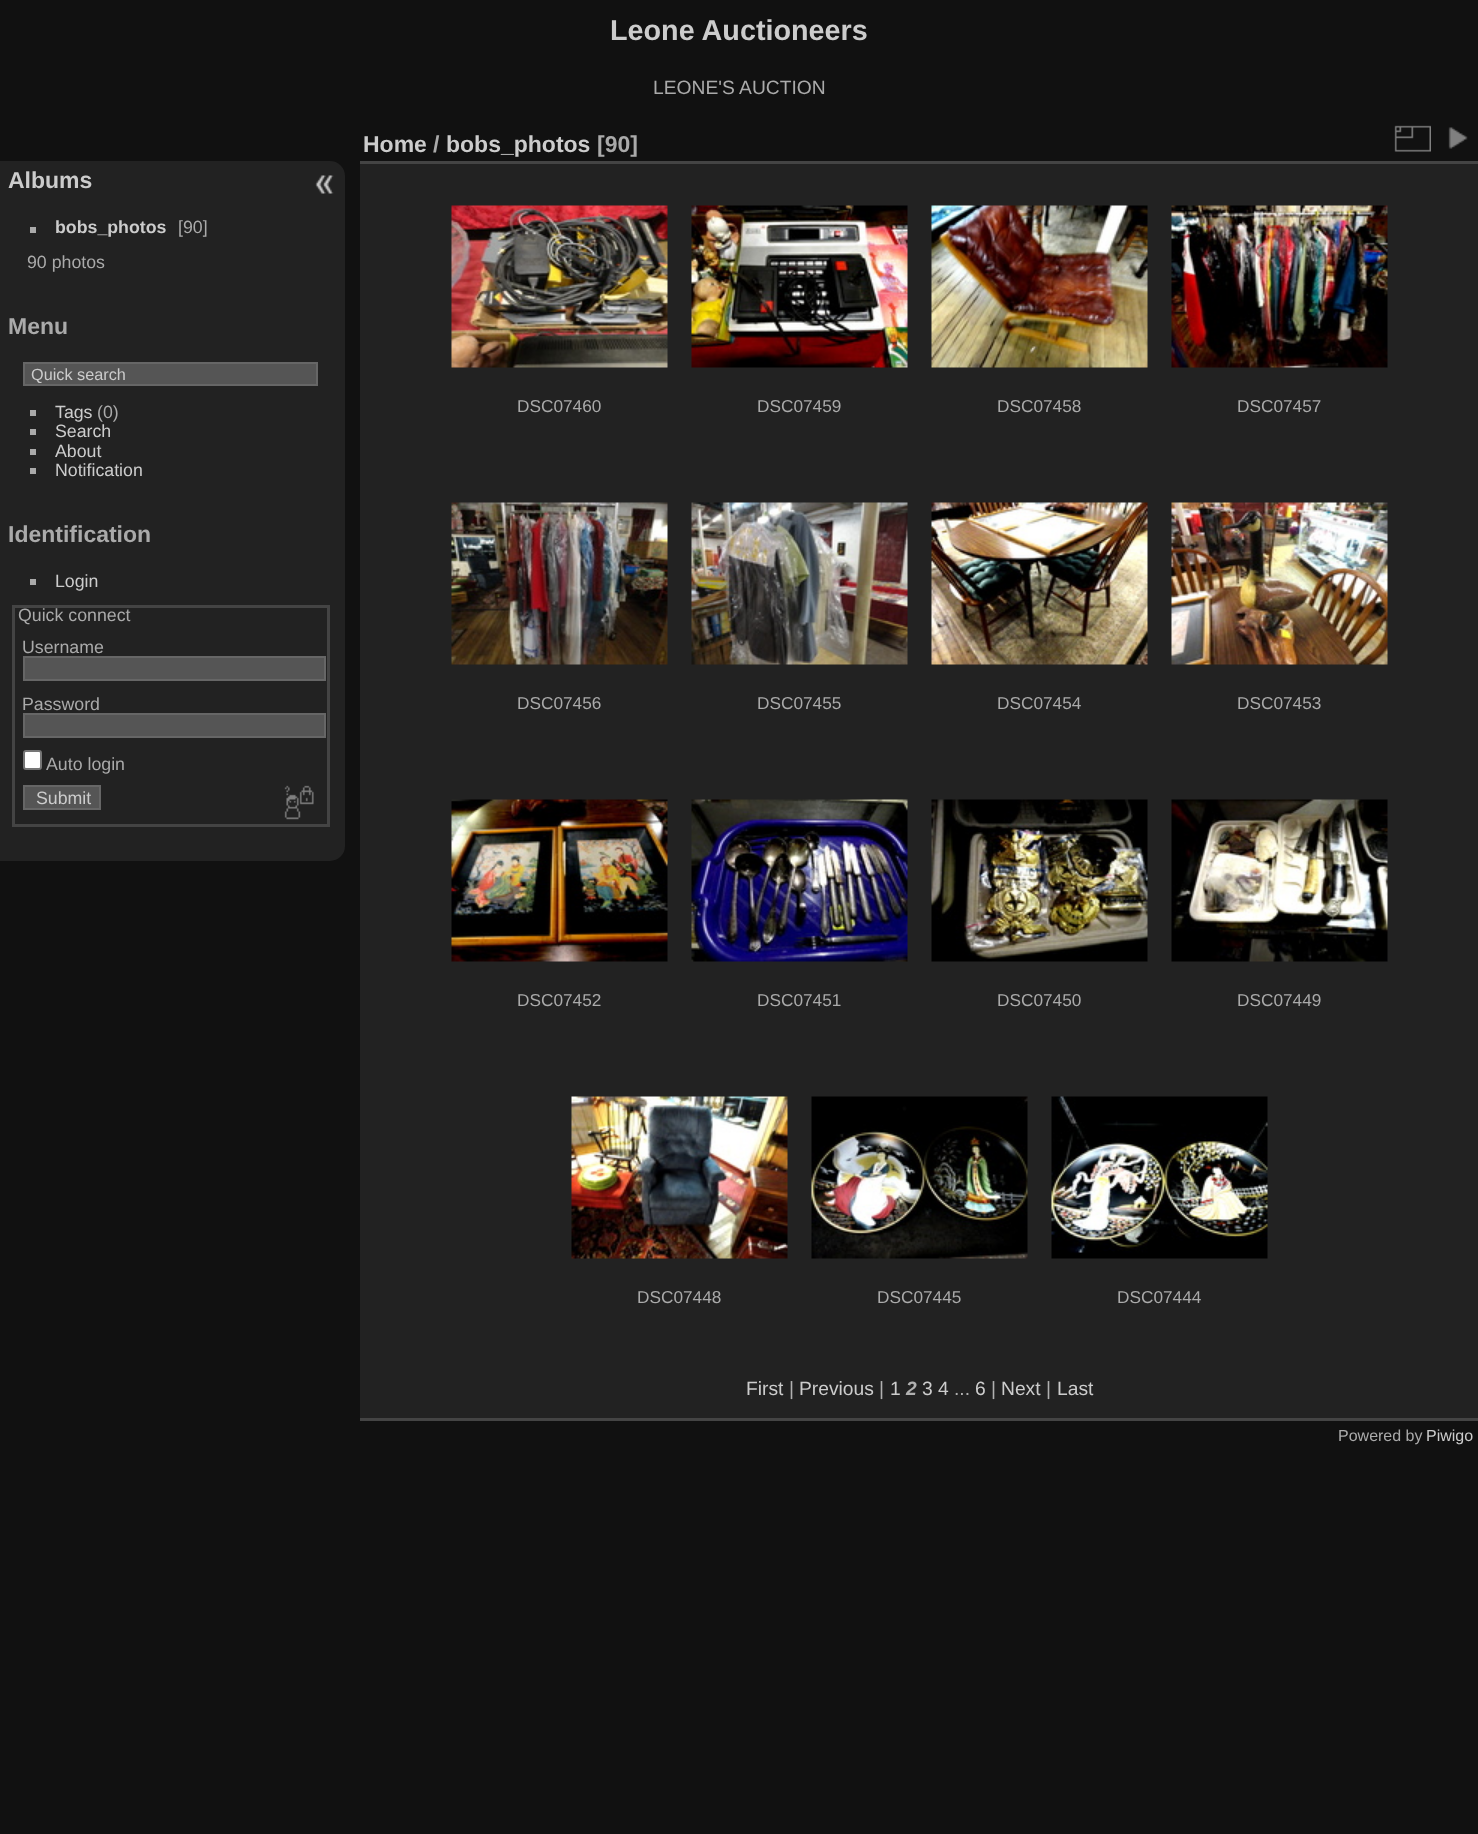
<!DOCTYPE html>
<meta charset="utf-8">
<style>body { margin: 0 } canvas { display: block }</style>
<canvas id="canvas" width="1478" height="1834"></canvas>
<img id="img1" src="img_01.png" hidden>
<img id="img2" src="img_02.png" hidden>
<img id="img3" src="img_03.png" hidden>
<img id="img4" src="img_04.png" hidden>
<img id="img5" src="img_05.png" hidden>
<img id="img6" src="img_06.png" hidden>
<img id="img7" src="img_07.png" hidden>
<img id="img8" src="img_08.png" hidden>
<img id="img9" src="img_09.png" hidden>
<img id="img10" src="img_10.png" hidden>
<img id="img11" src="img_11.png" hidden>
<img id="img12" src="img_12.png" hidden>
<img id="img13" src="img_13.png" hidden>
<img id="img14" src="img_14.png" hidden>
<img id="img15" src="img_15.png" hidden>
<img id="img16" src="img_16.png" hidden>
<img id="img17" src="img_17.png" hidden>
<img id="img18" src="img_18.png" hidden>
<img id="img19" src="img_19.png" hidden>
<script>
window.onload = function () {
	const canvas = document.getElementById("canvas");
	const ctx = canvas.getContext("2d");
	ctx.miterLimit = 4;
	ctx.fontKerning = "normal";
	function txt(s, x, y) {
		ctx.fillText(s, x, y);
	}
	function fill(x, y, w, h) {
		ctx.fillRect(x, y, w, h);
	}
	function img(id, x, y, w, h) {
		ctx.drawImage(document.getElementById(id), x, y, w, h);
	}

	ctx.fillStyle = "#111111";
	fill(0, 0, 1478, 1834);
	ctx.fillStyle = "#222222";
	ctx.beginPath();
	ctx.roundRect(0, 161, 345, 700, [0, 15, 15, 0]);
	ctx.fill();
	ctx.fillStyle = "#AAAAAA";
	fill(30, 227, 6, 6);
	ctx.fillStyle = "#555555";
	ctx.beginPath();
	ctx.rect(24, 363, 293, 22);
	ctx.fill();
	ctx.strokeStyle = "#666666";
	ctx.lineWidth = 2;
	ctx.stroke();
	ctx.fillStyle = "#AAAAAA";
	fill(30, 410, 6, 6);
	fill(30, 429, 6, 6);
	fill(30, 449, 6, 6);
	fill(30, 468, 6, 6);
	fill(30, 579, 6, 6);
	ctx.strokeStyle = "#444444";
	ctx.lineWidth = 3;
	ctx.strokeRect(13.5, 606.5, 315, 219);
	ctx.fillStyle = "#555555";
	ctx.beginPath();
	ctx.rect(24, 657, 301, 23);
	ctx.fill();
	ctx.strokeStyle = "#666666";
	ctx.lineWidth = 2;
	ctx.stroke();
	ctx.beginPath();
	ctx.rect(24, 714, 301, 23);
	ctx.fill();
	ctx.stroke();
	ctx.fillStyle = "#FFFFFF";
	ctx.beginPath();
	ctx.roundRect(24, 751, 17, 18, 2);
	ctx.fill();
	ctx.strokeStyle = "#767676";
	ctx.stroke();
	ctx.fillStyle = "#555555";
	ctx.beginPath();
	ctx.rect(24, 786, 76, 23);
	ctx.fill();
	ctx.strokeStyle = "#666666";
	ctx.stroke();
	img("img1", 284, 785, 30, 35);
	img("img2", 315, 175, 19, 19);
	ctx.fillStyle = "#222222";
	fill(360, 164, 1118, 1254);
	ctx.fillStyle = "#444444";
	fill(360, 1418, 1118, 3);
	fill(360, 161, 1118, 3);
	img("img3", 1394, 125, 37, 27);
	img("img4", 1448, 127, 20, 22);
	img("img5", 451, 205, 217, 163);
	img("img6", 691, 205, 217, 163);
	img("img7", 931, 205, 217, 163);
	img("img8", 1171, 205, 217, 163);
	img("img9", 451, 502, 217, 163);
	img("img10", 691, 502, 217, 163);
	img("img11", 931, 502, 217, 163);
	img("img12", 1171, 502, 217, 163);
	img("img13", 451, 799, 217, 163);
	img("img14", 691, 799, 217, 163);
	img("img15", 931, 799, 217, 163);
	img("img16", 1171, 799, 217, 163);
	img("img17", 571, 1096, 217, 163);
	img("img18", 811, 1096, 217, 163);
	img("img19", 1051, 1096, 217, 163);
	ctx.font = "bold 28.75px Liberation Sans";
	ctx.fillStyle = "#CCCCCC";
	txt("Leone Auctioneers", 610, 40);
	ctx.font = "19.25px Liberation Sans";
	ctx.fillStyle = "#AAAAAA";
	txt("LEONE'S AUCTION", 653, 94);
	ctx.font = "bold 23px Liberation Sans";
	ctx.fillStyle = "#CCCCCC";
	txt("Albums", 8, 188);
	ctx.font = "bold 17.75px Liberation Sans";
	txt("bobs_photos", 55, 233);
	ctx.font = "17.75px Liberation Sans";
	ctx.fillStyle = "#AAAAAA";
	txt("[90]", 178, 233);
	txt("90 photos", 27, 268);
	ctx.font = "bold 23px Liberation Sans";
	txt("Menu", 8, 334);
	ctx.font = "16.25px Liberation Sans";
	ctx.fillStyle = "#CCCCCC";
	txt("Quick search", 31, 380);
	ctx.font = "17.75px Liberation Sans";
	txt("Tags", 55, 418);
	ctx.fillStyle = "#AAAAAA";
	txt("(0)", 97, 418);
	ctx.fillStyle = "#CCCCCC";
	txt("Search", 55, 437);
	txt("About", 55, 457);
	txt("Notification", 55, 476);
	ctx.font = "bold 23px Liberation Sans";
	ctx.fillStyle = "#AAAAAA";
	txt("Identification", 8, 542);
	ctx.font = "17.75px Liberation Sans";
	ctx.fillStyle = "#CCCCCC";
	txt("Login", 55, 587);
	ctx.fillStyle = "#AAAAAA";
	txt("Quick connect", 18, 621);
	txt("Username", 22, 653);
	txt("Password", 22, 710);
	txt("Auto login", 46, 770);
	ctx.fillStyle = "#CCCCCC";
	txt("Submit", 36, 804);
	ctx.font = "bold 23px Liberation Sans";
	txt("Home", 363, 152);
	ctx.fillStyle = "#AAAAAA";
	txt("/", 433, 152);
	ctx.fillStyle = "#CCCCCC";
	txt("bobs_photos", 446, 152);
	ctx.fillStyle = "#AAAAAA";
	txt("[90]", 597, 152);
	ctx.font = "17.25px Liberation Sans";
	txt("DSC07460", 517, 412);
	txt("DSC07459", 757, 412);
	txt("DSC07458", 997, 412);
	txt("DSC07457", 1237, 412);
	txt("DSC07456", 517, 709);
	txt("DSC07455", 757, 709);
	txt("DSC07454", 997, 709);
	txt("DSC07453", 1237, 709);
	txt("DSC07452", 517, 1006);
	txt("DSC07451", 757, 1006);
	txt("DSC07450", 997, 1006);
	txt("DSC07449", 1237, 1006);
	txt("DSC07448", 637, 1303);
	txt("DSC07445", 877, 1303);
	txt("DSC07444", 1117, 1303);
	ctx.font = "19.25px Liberation Sans";
	ctx.fillStyle = "#CCCCCC";
	txt("First", 746, 1395);
	ctx.fillStyle = "#B0B0B0";
	txt("|", 789, 1395);
	ctx.fillStyle = "#CCCCCC";
	txt("Previous", 799, 1395);
	ctx.fillStyle = "#B0B0B0";
	txt("|", 879, 1395);
	ctx.fillStyle = "#CCCCCC";
	txt("1", 890, 1395);
	ctx.font = "italic bold 19.25px Liberation Sans";
	ctx.fillStyle = "#B0B0B0";
	txt("2", 906, 1395);
	ctx.font = "19.25px Liberation Sans";
	ctx.fillStyle = "#CCCCCC";
	txt("3 4", 922, 1395);
	ctx.fillStyle = "#B0B0B0";
	txt("...", 954, 1395);
	ctx.fillStyle = "#CCCCCC";
	txt("6", 975, 1395);
	ctx.fillStyle = "#B0B0B0";
	txt("|", 991, 1395);
	ctx.fillStyle = "#CCCCCC";
	txt("Next", 1001, 1395);
	ctx.fillStyle = "#B0B0B0";
	txt("|", 1046, 1395);
	ctx.fillStyle = "#CCCCCC";
	txt("Last", 1057, 1395);
	ctx.font = "16px Liberation Sans";
	ctx.fillStyle = "#AAAAAA";
	txt("Powered by", 1338, 1441);
	ctx.fillStyle = "#CCCCCC";
	txt("Piwigo", 1426, 1441);
};
</script>
